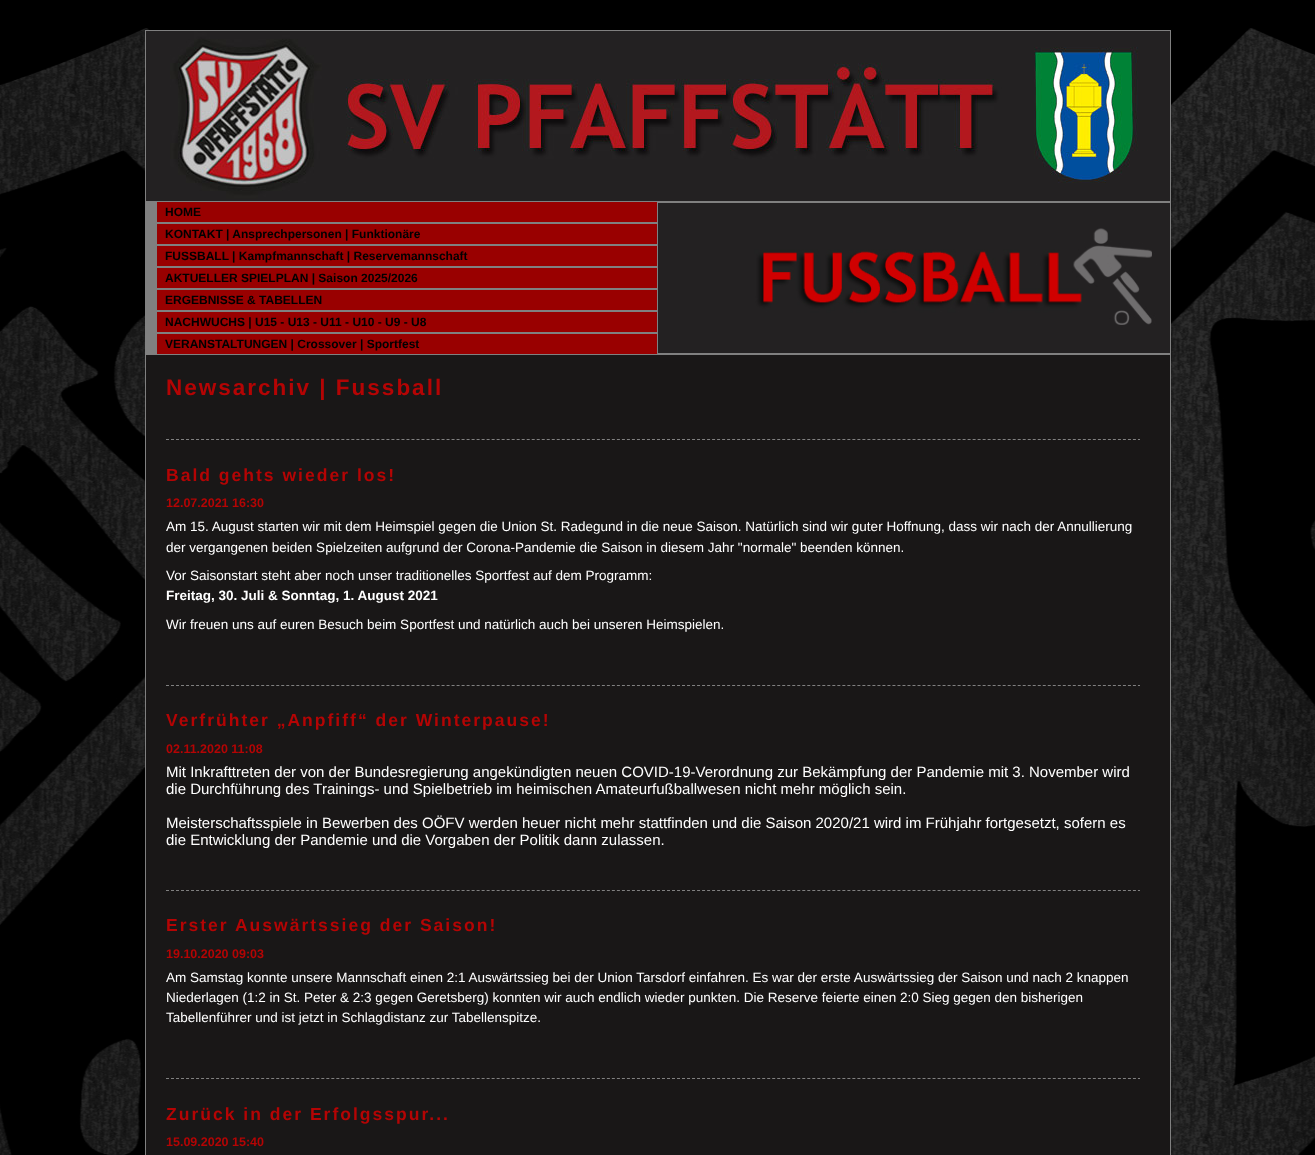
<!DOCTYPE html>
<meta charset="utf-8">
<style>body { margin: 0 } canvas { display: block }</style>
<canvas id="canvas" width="1315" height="1155"></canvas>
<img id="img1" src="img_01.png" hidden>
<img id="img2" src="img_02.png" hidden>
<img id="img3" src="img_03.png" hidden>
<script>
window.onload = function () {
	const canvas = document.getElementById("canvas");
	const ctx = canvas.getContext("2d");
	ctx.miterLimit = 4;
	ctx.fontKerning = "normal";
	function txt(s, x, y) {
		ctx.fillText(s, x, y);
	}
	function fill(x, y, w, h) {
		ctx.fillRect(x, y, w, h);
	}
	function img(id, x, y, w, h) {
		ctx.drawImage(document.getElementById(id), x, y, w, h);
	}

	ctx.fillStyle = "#000000";
	fill(0, 0, 1315, 1155);
	img("img1", 0, 28, 1315, 1127);
	ctx.fillStyle = "#191717";
	fill(146, 355, 1024, 800);
	img("img2", 146, 31, 1024, 170);
	ctx.strokeStyle = "#808080";
	ctx.strokeRect(145.5, 30.5, 1025, 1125);
	ctx.fillStyle = "#990000";
	fill(157, 202, 500, 20);
	ctx.strokeRect(146.5, 201.5, 511, 21);
	ctx.fillStyle = "#808080";
	fill(147, 202, 10, 20);
	ctx.fillStyle = "#990000";
	fill(157, 224, 500, 20);
	ctx.strokeRect(146.5, 223.5, 511, 21);
	ctx.fillStyle = "#808080";
	fill(147, 224, 10, 20);
	ctx.fillStyle = "#990000";
	fill(157, 246, 500, 20);
	ctx.strokeRect(146.5, 245.5, 511, 21);
	ctx.fillStyle = "#808080";
	fill(147, 246, 10, 20);
	ctx.fillStyle = "#990000";
	fill(157, 268, 500, 20);
	ctx.strokeRect(146.5, 267.5, 511, 21);
	ctx.fillStyle = "#808080";
	fill(147, 268, 10, 20);
	ctx.fillStyle = "#990000";
	fill(157, 290, 500, 20);
	ctx.strokeRect(146.5, 289.5, 511, 21);
	ctx.fillStyle = "#808080";
	fill(147, 290, 10, 20);
	ctx.fillStyle = "#990000";
	fill(157, 312, 500, 20);
	ctx.strokeRect(146.5, 311.5, 511, 21);
	ctx.fillStyle = "#808080";
	fill(147, 312, 10, 20);
	ctx.fillStyle = "#990000";
	fill(157, 334, 500, 20);
	ctx.strokeRect(146.5, 333.5, 511, 21);
	ctx.fillStyle = "#808080";
	fill(147, 334, 10, 20);
	fill(658, 201, 512, 2);
	fill(658, 353, 512, 2);
	img("img3", 658, 203, 512, 150);
	ctx.beginPath();
	ctx.moveTo(166, 439.5);
	ctx.lineTo(1140, 439.5);
	ctx.setLineDash([3, 2.01]);
	ctx.stroke();
	ctx.beginPath();
	ctx.moveTo(166, 685.5);
	ctx.lineTo(1140, 685.5);
	ctx.stroke();
	ctx.beginPath();
	ctx.moveTo(166, 890.5);
	ctx.lineTo(1140, 890.5);
	ctx.stroke();
	ctx.beginPath();
	ctx.moveTo(166, 1078.5);
	ctx.lineTo(1140, 1078.5);
	ctx.stroke();
	ctx.font = "bold 12px Liberation Sans";
	ctx.fillStyle = "#000000";
	txt("HOME", 165, 216);
	txt("KONTAKT | Ansprechpersonen | Funktionäre", 165, 238);
	txt("FUSSBALL | Kampfmannschaft | Reservemannschaft", 165, 260);
	txt("AKTUELLER SPIELPLAN | Saison 2025/2026", 165, 282);
	txt("ERGEBNISSE & TABELLEN", 165, 304);
	txt("NACHWUCHS | U15 - U13 - U11 - U10 - U9 - U8", 165, 326);
	txt("VERANSTALTUNGEN | Crossover | Sportfest", 165, 348);
	ctx.letterSpacing = "2px";
	ctx.font = "bold 22.5px Liberation Sans";
	ctx.fillStyle = "#B40404";
	txt("Newsarchiv | Fussball", 166, 395);
	ctx.font = "bold 17.55px Liberation Sans";
	txt("Bald gehts wieder los!", 166, 481);
	ctx.letterSpacing = "0px";
	ctx.font = "bold 12.5px Liberation Sans";
	txt("12.07.2021 16:30", 166, 507);
	ctx.font = "13.5px Liberation Sans";
	ctx.fillStyle = "#FFFFFF";
	txt("Am 15. August starten wir mit dem Heimspiel gegen die Union St. Radegund in die neue Saison. Natürlich sind wir guter Hoffnung, dass wir nach der Annullierung", 166, 531);
	txt("der vergangenen beiden Spielzeiten aufgrund der Corona-Pandemie die Saison in diesem Jahr \"normale\" beenden können.", 166, 552);
	txt("Vor Saisonstart steht aber noch unser traditionelles Sportfest auf dem Programm:", 166, 580);
	ctx.font = "bold 13.5px Liberation Sans";
	txt("Freitag, 30. Juli & Sonntag, 1. August 2021", 166, 600);
	ctx.font = "13.5px Liberation Sans";
	txt("Wir freuen uns auf euren Besuch beim Sportfest und natürlich auch bei unseren Heimspielen.", 166, 629);
	ctx.letterSpacing = "2px";
	ctx.font = "bold 17.55px Liberation Sans";
	ctx.fillStyle = "#B40404";
	txt("Verfrühter „Anpfiff“ der Winterpause!", 166, 726);
	ctx.letterSpacing = "0px";
	ctx.font = "bold 12.5px Liberation Sans";
	txt("02.11.2020 11:08", 166, 753);
	ctx.font = "15px Liberation Sans";
	ctx.fillStyle = "#FFFFFF";
	txt("Mit Inkrafttreten der von der Bundesregierung angekündigten neuen COVID-19-Verordnung zur Bekämpfung der Pandemie mit 3. November wird", 166, 777);
	txt("die Durchführung des Trainings- und Spielbetrieb im heimischen Amateurfußballwesen nicht mehr möglich sein.", 166, 794);
	txt("Meisterschaftsspiele in Bewerben des OÖFV werden heuer nicht mehr stattfinden und die Saison 2020/21 wird im Frühjahr fortgesetzt, sofern es", 166, 828);
	txt("die Entwicklung der Pandemie und die Vorgaben der Politik dann zulassen.", 166, 845);
	ctx.letterSpacing = "2px";
	ctx.font = "bold 17.55px Liberation Sans";
	ctx.fillStyle = "#B40404";
	txt("Erster Auswärtssieg der Saison!", 166, 931);
	ctx.letterSpacing = "0px";
	ctx.font = "bold 12.5px Liberation Sans";
	txt("19.10.2020 09:03", 166, 958);
	ctx.font = "13.5px Liberation Sans";
	ctx.fillStyle = "#FFFFFF";
	txt("Am Samstag konnte unsere Mannschaft einen 2:1 Auswärtssieg bei der Union Tarsdorf einfahren. Es war der erste Auswärtssieg der Saison und nach 2 knappen", 166, 982);
	txt("Niederlagen (1:2 in St. Peter & 2:3 gegen Geretsberg) konnten wir auch endlich wieder punkten. Die Reserve feierte einen 2:0 Sieg gegen den bisherigen", 166, 1002);
	txt("Tabellenführer und ist jetzt in Schlagdistanz zur Tabellenspitze.", 166, 1022);
	ctx.letterSpacing = "2px";
	ctx.font = "bold 17.55px Liberation Sans";
	ctx.fillStyle = "#B40404";
	txt("Zurück in der Erfolgsspur...", 166, 1120);
	ctx.letterSpacing = "0px";
	ctx.font = "bold 12.5px Liberation Sans";
	txt("15.09.2020 15:40", 166, 1146);
};
</script>
